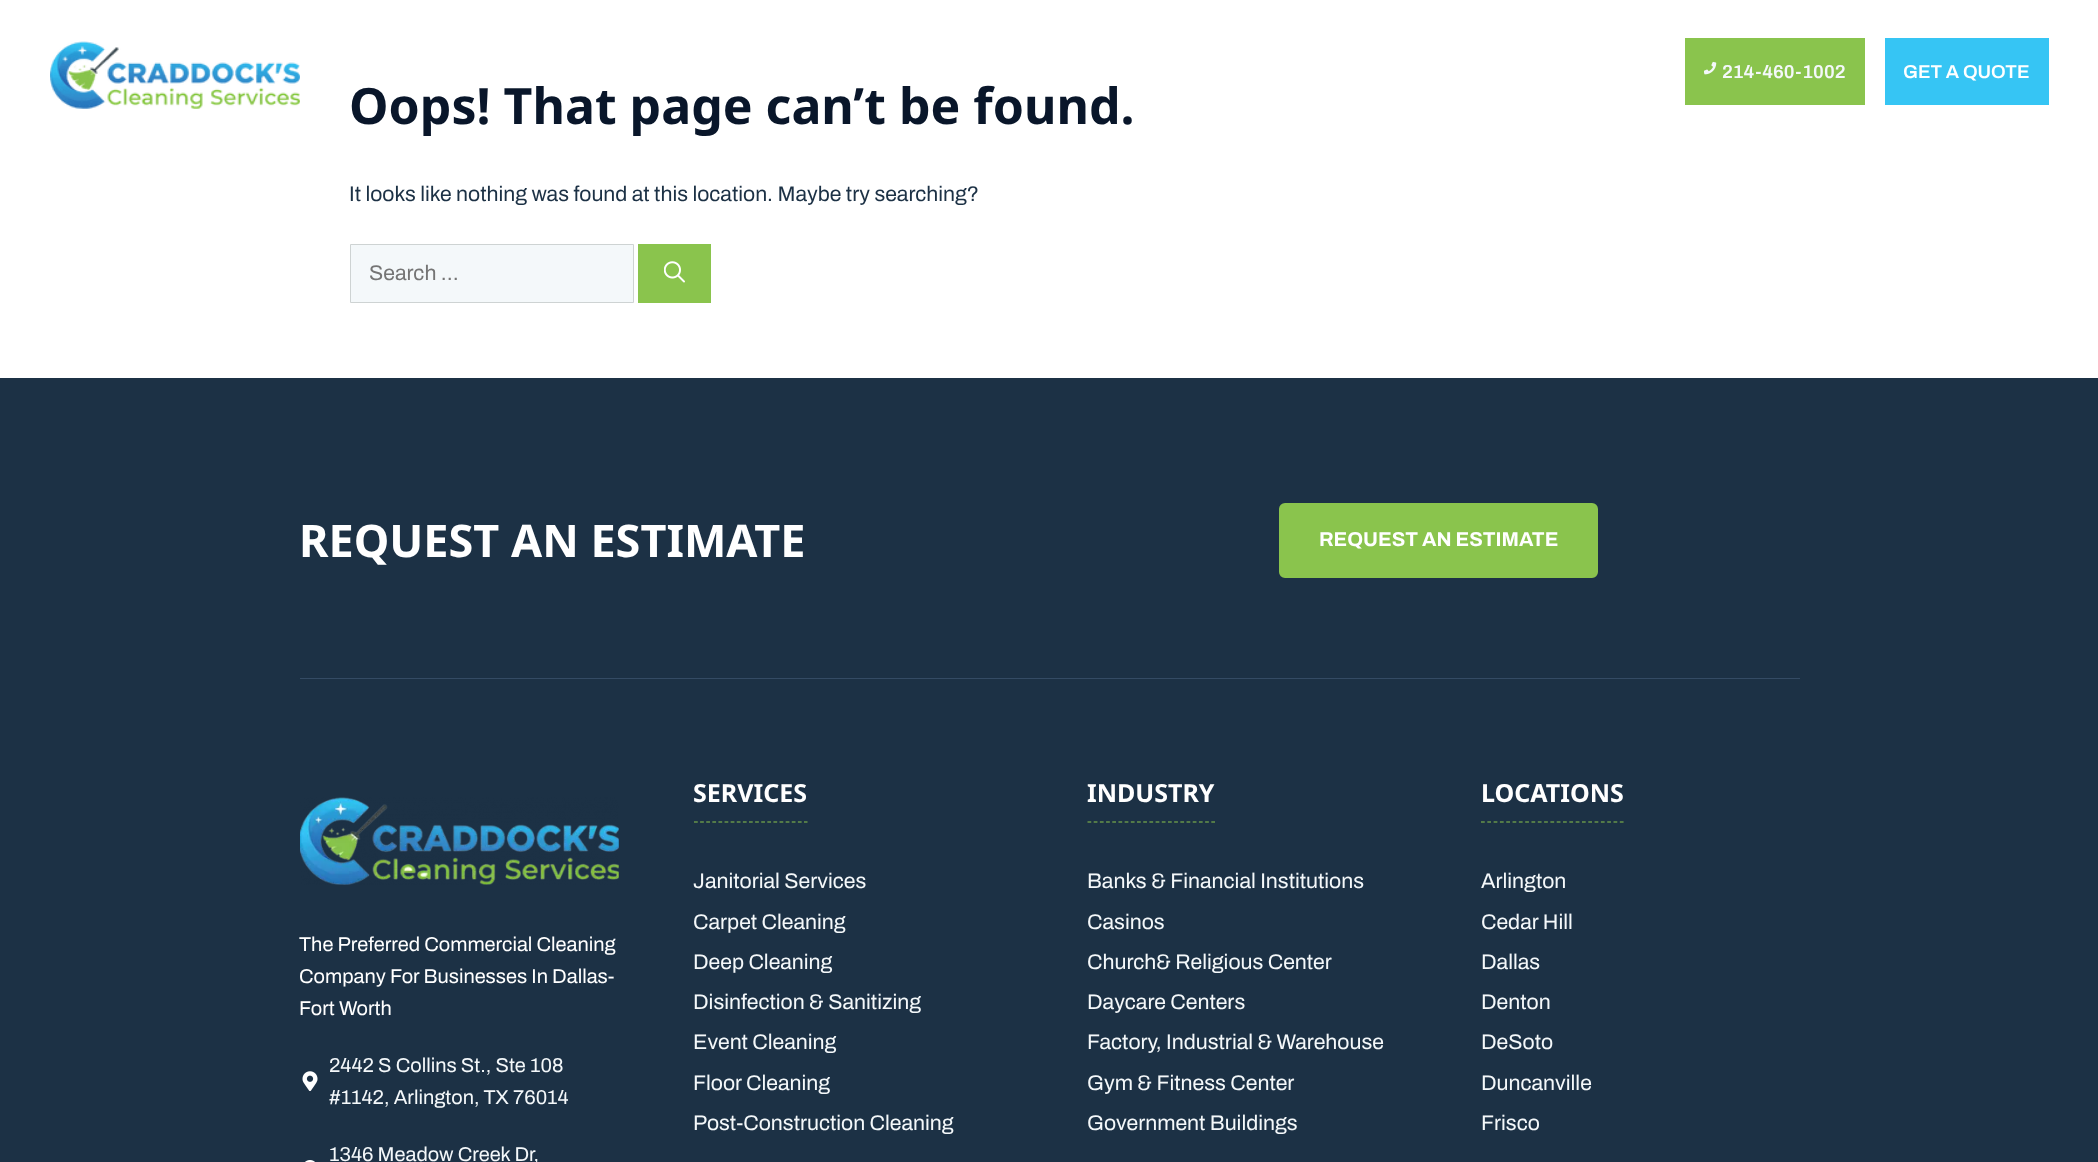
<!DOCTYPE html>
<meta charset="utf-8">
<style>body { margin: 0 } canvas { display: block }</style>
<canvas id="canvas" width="2098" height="1162"></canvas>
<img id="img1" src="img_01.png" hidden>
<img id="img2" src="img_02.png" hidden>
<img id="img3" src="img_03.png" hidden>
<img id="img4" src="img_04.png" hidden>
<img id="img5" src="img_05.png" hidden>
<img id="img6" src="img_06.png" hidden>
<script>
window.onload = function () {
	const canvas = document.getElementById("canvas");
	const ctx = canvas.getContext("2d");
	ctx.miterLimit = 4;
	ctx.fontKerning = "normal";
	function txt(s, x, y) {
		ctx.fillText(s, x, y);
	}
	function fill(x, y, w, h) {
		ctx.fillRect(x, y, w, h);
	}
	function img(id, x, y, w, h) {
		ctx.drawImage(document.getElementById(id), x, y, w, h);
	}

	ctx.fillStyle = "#FFFFFF";
	fill(0, 0, 2098, 1162);
	img("img1", 50, 41, 250, 68);
	ctx.fillStyle = "#8AC44D";
	fill(1685, 38, 180, 67);
	img("img2", 1704, 61, 13, 14);
	ctx.fillStyle = "#36C5F4";
	fill(1885, 38, 164, 67);
	ctx.fillStyle = "#F4F8FA";
	ctx.beginPath();
	ctx.rect(350.5, 244.5, 283, 58);
	ctx.fill();
	ctx.strokeStyle = "#CED3D3";
	ctx.stroke();
	ctx.fillStyle = "#8AC44D";
	fill(638, 244, 73, 59);
	img("img3", 664, 261, 21, 22);
	ctx.fillStyle = "#1C3145";
	fill(0, 378, 2098, 784);
	ctx.fillStyle = "#344B64";
	fill(300, 678, 1500, 1);
	ctx.fillStyle = "#8AC44D";
	ctx.beginPath();
	ctx.roundRect(1280.5, 504.5, 316, 72, 4.5);
	ctx.fill();
	ctx.strokeStyle = "#8AC44D";
	ctx.lineWidth = 3;
	ctx.stroke();
	img("img4", 300, 797, 319, 88);
	img("img5", 302, 1071, 16, 20);
	img("img6", 305, 1160, 10, 2);
	ctx.beginPath();
	ctx.moveTo(694, 822);
	ctx.lineTo(807.5, 822);
	ctx.lineWidth = 1.2;
	ctx.setLineDash([3.75, 2.36]);
	ctx.stroke();
	ctx.beginPath();
	ctx.moveTo(1087.5, 822);
	ctx.lineTo(1215, 822);
	ctx.setLineDash([3.75, 2.44]);
	ctx.stroke();
	ctx.beginPath();
	ctx.moveTo(1481, 822);
	ctx.lineTo(1624, 822);
	ctx.setLineDash([3.75, 2.56]);
	ctx.stroke();
	ctx.font = "600 18.75px Archivo";
	ctx.fillStyle = "#F4F8FA";
	txt("214-460-1002", 1722, 78);
	ctx.fillStyle = "#FFFFFF";
	txt("GET A QUOTE", 1903, 78);
	ctx.font = "bold 50px Noto Sans";
	ctx.fillStyle = "#09162A";
	txt("Oops! That page can’t be found.", 349, 124);
	ctx.font = "21.25px Archivo";
	ctx.fillStyle = "#1C3145";
	txt("It looks like nothing was found at this location. Maybe try searching?", 349, 201);
	ctx.fillStyle = "#757575";
	txt("Search …", 369, 280);
	ctx.font = "bold 45px Noto Sans";
	ctx.fillStyle = "#FFFFFF";
	txt("REQUEST AN ESTIMATE", 299, 557);
	ctx.font = "bold 20px Archivo";
	txt("REQUEST AN ESTIMATE", 1319, 546);
	ctx.font = "20px Archivo";
	txt("The Preferred Commercial Cleaning", 299, 951);
	txt("Company For Businesses In Dallas-", 299, 983);
	txt("Fort Worth", 299, 1015);
	ctx.fillStyle = "#F4F8FA";
	txt("2442 S Collins St., Ste 108", 329, 1072);
	txt("#1142, Arlington, TX 76014", 329, 1104);
	txt("1346 Meadow Creek Dr,", 329, 1161);
	ctx.font = "bold 25px Noto Sans";
	ctx.fillStyle = "#FFFFFF";
	txt("SERVICES", 693, 802);
	ctx.font = "21.25px Archivo";
	ctx.fillStyle = "#F4F8FA";
	txt("Janitorial Services", 693, 888);
	txt("Carpet Cleaning", 693, 929);
	txt("Deep Cleaning", 693, 969);
	txt("Disinfection & Sanitizing", 693, 1009);
	txt("Event Cleaning", 693, 1049);
	txt("Floor Cleaning", 693, 1090);
	txt("Post-Construction Cleaning", 693, 1130);
	ctx.font = "bold 25px Noto Sans";
	ctx.fillStyle = "#FFFFFF";
	txt("INDUSTRY", 1087, 802);
	ctx.font = "21.25px Archivo";
	ctx.fillStyle = "#F4F8FA";
	txt("Banks & Financial Institutions", 1087, 888);
	txt("Casinos", 1087, 929);
	txt("Church& Religious Center", 1087, 969);
	txt("Daycare Centers", 1087, 1009);
	txt("Factory, Industrial & Warehouse", 1087, 1049);
	txt("Gym & Fitness Center", 1087, 1090);
	txt("Government Buildings", 1087, 1130);
	ctx.font = "bold 25px Noto Sans";
	ctx.fillStyle = "#FFFFFF";
	txt("LOCATIONS", 1481, 802);
	ctx.font = "21.25px Archivo";
	ctx.fillStyle = "#F4F8FA";
	txt("Arlington", 1481, 888);
	txt("Cedar Hill", 1481, 929);
	txt("Dallas", 1481, 969);
	txt("Denton", 1481, 1009);
	txt("DeSoto", 1481, 1049);
	txt("Duncanville", 1481, 1090);
	txt("Frisco", 1481, 1130);
};
</script>
